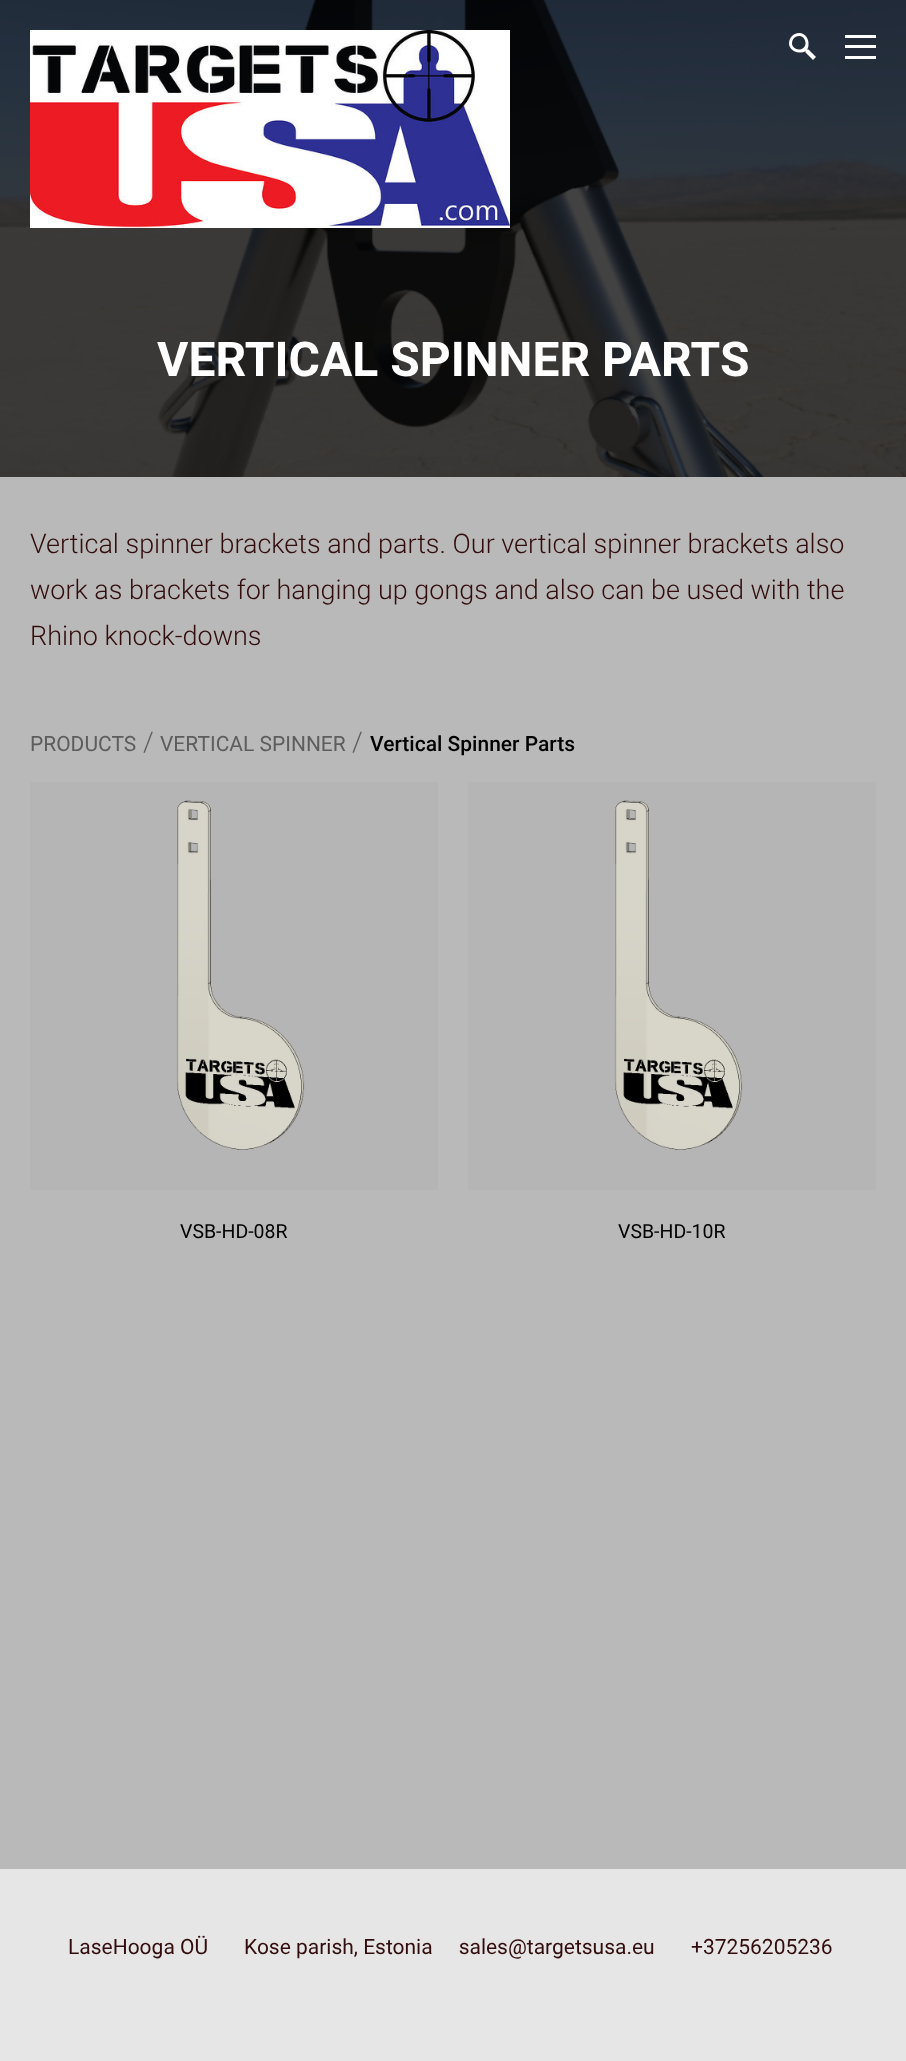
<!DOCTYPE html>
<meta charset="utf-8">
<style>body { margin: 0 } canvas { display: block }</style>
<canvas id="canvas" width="906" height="2061"></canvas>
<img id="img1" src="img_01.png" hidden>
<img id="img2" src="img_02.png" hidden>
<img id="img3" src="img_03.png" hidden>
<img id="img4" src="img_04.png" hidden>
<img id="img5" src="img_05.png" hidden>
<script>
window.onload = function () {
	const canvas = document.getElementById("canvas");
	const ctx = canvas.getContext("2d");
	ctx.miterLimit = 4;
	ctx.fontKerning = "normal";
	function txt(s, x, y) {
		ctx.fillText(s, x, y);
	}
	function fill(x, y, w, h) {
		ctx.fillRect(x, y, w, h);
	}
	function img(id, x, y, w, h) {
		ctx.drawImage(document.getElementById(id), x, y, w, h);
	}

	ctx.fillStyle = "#FFFFFF";
	fill(0, 0, 906, 2061);
	img("img1", 0, 0, 906, 477);
	img("img2", 30, 30, 480, 198);
	img("img3", 789, 33, 27, 27);
	fill(845, 35, 31, 3);
	fill(845, 45, 31, 3);
	fill(845, 56, 31, 3);
	ctx.fillStyle = "#B9B9B9";
	fill(0, 477, 906, 1392);
	ctx.fillStyle = "#B5B5B5";
	fill(30, 782, 408, 408);
	img("img4", 176, 800, 129, 350);
	fill(468, 782, 408, 408);
	img("img5", 614, 800, 129, 350);
	ctx.fillStyle = "#E6E6E6";
	fill(0, 1869, 906, 192);
	ctx.font = "bold 48px Roboto";
	ctx.fillStyle = "#FFFFFF";
	txt("VERTICAL SPINNER PARTS", 157, 376);
	ctx.font = "300 27px Roboto";
	ctx.fillStyle = "#330D0D";
	txt("Vertical spinner brackets and parts. Our vertical spinner brackets also", 30, 553);
	txt("work as brackets for hanging up gongs and also can be used with the", 30, 599);
	txt("Rhino knock-downs", 30, 645);
	ctx.font = "21px Roboto";
	ctx.fillStyle = "#5D5D5D";
	txt("PRODUCTS", 30, 751);
	ctx.font = "300 27px Roboto";
	txt("/", 143, 751);
	ctx.font = "21px Roboto";
	txt("VERTICAL SPINNER", 160, 751);
	ctx.font = "300 27px Roboto";
	txt("/", 352, 751);
	ctx.font = "500 21px Roboto";
	ctx.fillStyle = "#000000";
	txt("Vertical Spinner Parts", 370, 751);
	ctx.font = "19.5px Roboto";
	txt("VSB-HD-08R", 180, 1238);
	txt("VSB-HD-10R", 618, 1238);
	ctx.font = "21px Roboto";
	ctx.fillStyle = "#330D0D";
	txt("LaseHooga OÜ", 68, 1954);
	txt("Kose parish, Estonia     sales@targetsusa.eu", 244, 1954);
	txt("+37256205236", 691, 1954);
};
</script>
